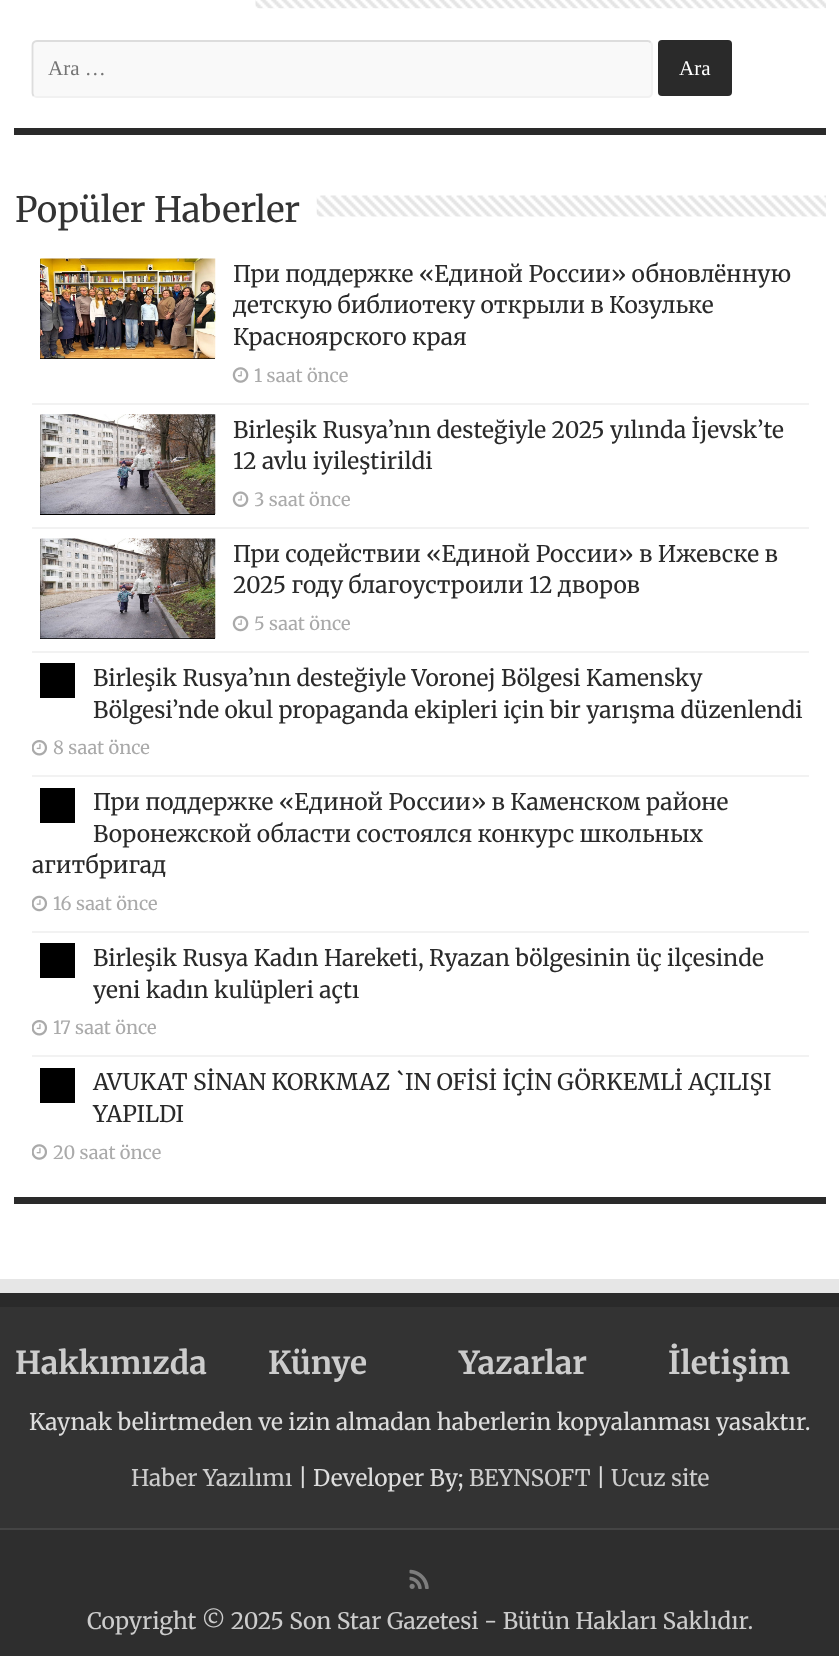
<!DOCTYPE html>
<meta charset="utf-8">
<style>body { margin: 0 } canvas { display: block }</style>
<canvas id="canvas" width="839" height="1656"></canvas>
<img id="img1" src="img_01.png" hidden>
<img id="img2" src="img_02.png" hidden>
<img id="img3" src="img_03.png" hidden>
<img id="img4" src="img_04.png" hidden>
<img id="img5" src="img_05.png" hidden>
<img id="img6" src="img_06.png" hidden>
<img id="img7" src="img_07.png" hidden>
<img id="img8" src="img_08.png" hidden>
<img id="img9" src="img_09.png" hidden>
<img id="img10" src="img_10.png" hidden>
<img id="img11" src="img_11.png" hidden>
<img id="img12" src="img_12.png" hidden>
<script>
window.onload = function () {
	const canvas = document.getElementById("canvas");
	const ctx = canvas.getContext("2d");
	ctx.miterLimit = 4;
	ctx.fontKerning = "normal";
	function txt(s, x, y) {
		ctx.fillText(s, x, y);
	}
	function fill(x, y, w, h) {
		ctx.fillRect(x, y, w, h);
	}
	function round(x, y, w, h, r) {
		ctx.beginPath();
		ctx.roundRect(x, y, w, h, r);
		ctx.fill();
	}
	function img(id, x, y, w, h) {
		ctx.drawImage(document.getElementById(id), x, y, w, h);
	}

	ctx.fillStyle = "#FFFFFF";
	fill(0, 0, 839, 1656);
	img("img1", 255, 0, 571, 9);
	ctx.fillStyle = "#2A2A2A";
	fill(14, 128, 812, 7);
	ctx.fillStyle = "#F9F9F9";
	round(32, 40, 621, 58, 5);
	ctx.beginPath();
	ctx.moveTo(650.5, 42.5);
	ctx.bezierCurveTo(651.5, 43, 652, 44.5, 652, 45.5);
	ctx.lineTo(652, 93);
	ctx.bezierCurveTo(652, 94, 651.5, 95, 650.5, 96);
	ctx.bezierCurveTo(650, 96.5, 648.5, 97, 647.5, 97);
	ctx.lineTo(37, 97);
	ctx.bezierCurveTo(35.5, 97, 34.5, 96.5, 33.5, 96);
	ctx.strokeStyle = "#F1F1F1";
	ctx.lineWidth = 1.8;
	ctx.stroke();
	ctx.beginPath();
	ctx.moveTo(33.5, 96);
	ctx.bezierCurveTo(33, 95, 32.5, 94, 32.5, 93);
	ctx.lineTo(32.5, 45.5);
	ctx.bezierCurveTo(32.5, 44.5, 33, 43, 33.5, 42.5);
	ctx.bezierCurveTo(34.5, 41.5, 35.5, 41, 37, 41);
	ctx.lineTo(647.5, 41);
	ctx.bezierCurveTo(648.5, 41, 650, 41.5, 650.5, 42.5);
	ctx.strokeStyle = "#DDDDDD";
	ctx.stroke();
	ctx.fillStyle = "#2A2A2A";
	round(658, 40, 74, 56, 4);
	img("img2", 316, 195, 510, 22);
	fill(14, 1197, 812, 7);
	ctx.fillStyle = "#F2F2F2";
	fill(32, 403, 777, 2);
	ctx.fillStyle = "#000000";
	fill(40, 259, 175, 100);
	img("img3", 40, 258, 176, 101);
	img("img4", 232, 367, 17, 16);
	ctx.fillStyle = "#F2F2F2";
	fill(32, 527, 777, 2);
	ctx.fillStyle = "#000000";
	fill(40, 415, 175, 100);
	img("img5", 40, 414, 176, 100);
	img("img6", 232, 491, 17, 16);
	ctx.fillStyle = "#F2F2F2";
	fill(32, 651, 777, 2);
	ctx.fillStyle = "#000000";
	fill(40, 539, 175, 100);
	img("img7", 40, 538, 176, 101);
	img("img8", 232, 615, 17, 17);
	ctx.fillStyle = "#F2F2F2";
	fill(32, 775, 777, 2);
	ctx.fillStyle = "#000000";
	fill(40, 663, 35, 35);
	img("img9", 32, 740, 16, 16);
	ctx.fillStyle = "#F2F2F2";
	fill(32, 931, 777, 2);
	ctx.fillStyle = "#000000";
	fill(40, 788, 35, 35);
	img("img10", 32, 895, 16, 17);
	ctx.fillStyle = "#F2F2F2";
	fill(32, 1055, 777, 2);
	ctx.fillStyle = "#000000";
	fill(40, 943, 35, 35);
	img("img9", 32, 1020, 16, 16);
	fill(40, 1068, 35, 35);
	img("img11", 32, 1144, 15, 16);
	ctx.fillStyle = "#E6E6E6";
	fill(0, 1279, 839, 14);
	ctx.fillStyle = "#333333";
	fill(0, 1307, 839, 221);
	ctx.fillStyle = "#2A2A2A";
	fill(0, 1293, 839, 14);
	ctx.fillStyle = "#2E2E2E";
	fill(0, 1530, 839, 126);
	ctx.fillStyle = "#444444";
	fill(0, 1528, 839, 2);
	img("img12", 409, 1569, 20, 20);
	ctx.font = "21px Liberation Serif";
	ctx.fillStyle = "#757575";
	txt("Ara …", 48, 75);
	ctx.fillStyle = "#FFFFFF";
	txt("Ara", 679, 75);
	ctx.font = "35px Merriweather";
	ctx.fillStyle = "#333333";
	txt("Popüler Haberler", 15, 222);
	ctx.font = "22.75px Merriweather";
	ctx.fillStyle = "#2A2A2A";
	txt("При поддержке «Единой России» обновлённую", 233, 282);
	txt("детскую библиотеку открыли в Козульке", 233, 313);
	txt("Красноярского края", 233, 345);
	ctx.font = "18.25px Merriweather";
	ctx.fillStyle = "#AAAAAA";
	txt("1 saat önce", 254, 382);
	ctx.font = "22.75px Merriweather";
	ctx.fillStyle = "#2A2A2A";
	txt("Birleşik Rusya’nın desteğiyle 2025 yılında İjevsk’te", 233, 438);
	txt("12 avlu iyileştirildi", 233, 469);
	ctx.font = "18.25px Merriweather";
	ctx.fillStyle = "#AAAAAA";
	txt("3 saat önce", 254, 506);
	ctx.font = "22.75px Merriweather";
	ctx.fillStyle = "#2A2A2A";
	txt("При содействии «Единой России» в Ижевске в", 233, 562);
	txt("2025 году благоустроили 12 дворов", 233, 593);
	ctx.font = "18.25px Merriweather";
	ctx.fillStyle = "#AAAAAA";
	txt("5 saat önce", 254, 630);
	ctx.font = "22.75px Merriweather";
	ctx.fillStyle = "#2A2A2A";
	txt("Birleşik Rusya’nın desteğiyle Voronej Bölgesi Kamensky", 93, 686);
	txt("Bölgesi’nde okul propaganda ekipleri için bir yarışma düzenlendi", 93, 718);
	ctx.font = "18.25px Merriweather";
	ctx.fillStyle = "#AAAAAA";
	txt("8 saat önce", 53, 754);
	ctx.font = "22.75px Merriweather";
	ctx.fillStyle = "#2A2A2A";
	txt("При поддержке «Единой России» в Каменском районе", 93, 810);
	txt("Воронежской области состоялся конкурс школьных", 93, 842);
	txt("агитбригад", 32, 873);
	ctx.font = "18.25px Merriweather";
	ctx.fillStyle = "#AAAAAA";
	txt("16 saat önce", 53, 910);
	ctx.font = "22.75px Merriweather";
	ctx.fillStyle = "#2A2A2A";
	txt("Birleşik Rusya Kadın Hareketi, Ryazan bölgesinin üç ilçesinde", 93, 966);
	txt("yeni kadın kulüpleri açtı", 93, 998);
	ctx.font = "18.25px Merriweather";
	ctx.fillStyle = "#AAAAAA";
	txt("17 saat önce", 53, 1034);
	ctx.font = "22.75px Merriweather";
	ctx.fillStyle = "#2A2A2A";
	txt("AVUKAT SİNAN KORKMAZ `IN OFİSİ İÇİN GÖRKEMLİ AÇILIŞI", 93, 1090);
	txt("YAPILDI", 93, 1122);
	ctx.font = "18.25px Merriweather";
	ctx.fillStyle = "#AAAAAA";
	txt("20 saat önce", 53, 1159);
	ctx.font = "bold 31.5px Merriweather";
	ctx.fillStyle = "#CCCCCC";
	txt("Hakkımızda", 15, 1374);
	txt("Künye", 268, 1374);
	txt("Yazarlar", 459, 1374);
	txt("İletişim", 668, 1374);
	ctx.font = "22.75px Merriweather";
	ctx.fillStyle = "#DDDDDD";
	txt("Kaynak belirtmeden ve izin almadan haberlerin kopyalanması yasaktır.", 29, 1430);
	ctx.fillStyle = "#CCCCCC";
	txt("Haber Yazılımı", 131, 1486);
	ctx.fillStyle = "#DDDDDD";
	txt("| Developer By;", 298, 1486);
	ctx.fillStyle = "#CCCCCC";
	txt("BEYNSOFT", 469, 1486);
	ctx.fillStyle = "#DDDDDD";
	txt("|", 596, 1486);
	ctx.fillStyle = "#CCCCCC";
	txt("Ucuz site", 611, 1486);
	txt("Copyright © 2025 Son Star Gazetesi - Bütün Hakları Saklıdır.", 87, 1629);
};
</script>
